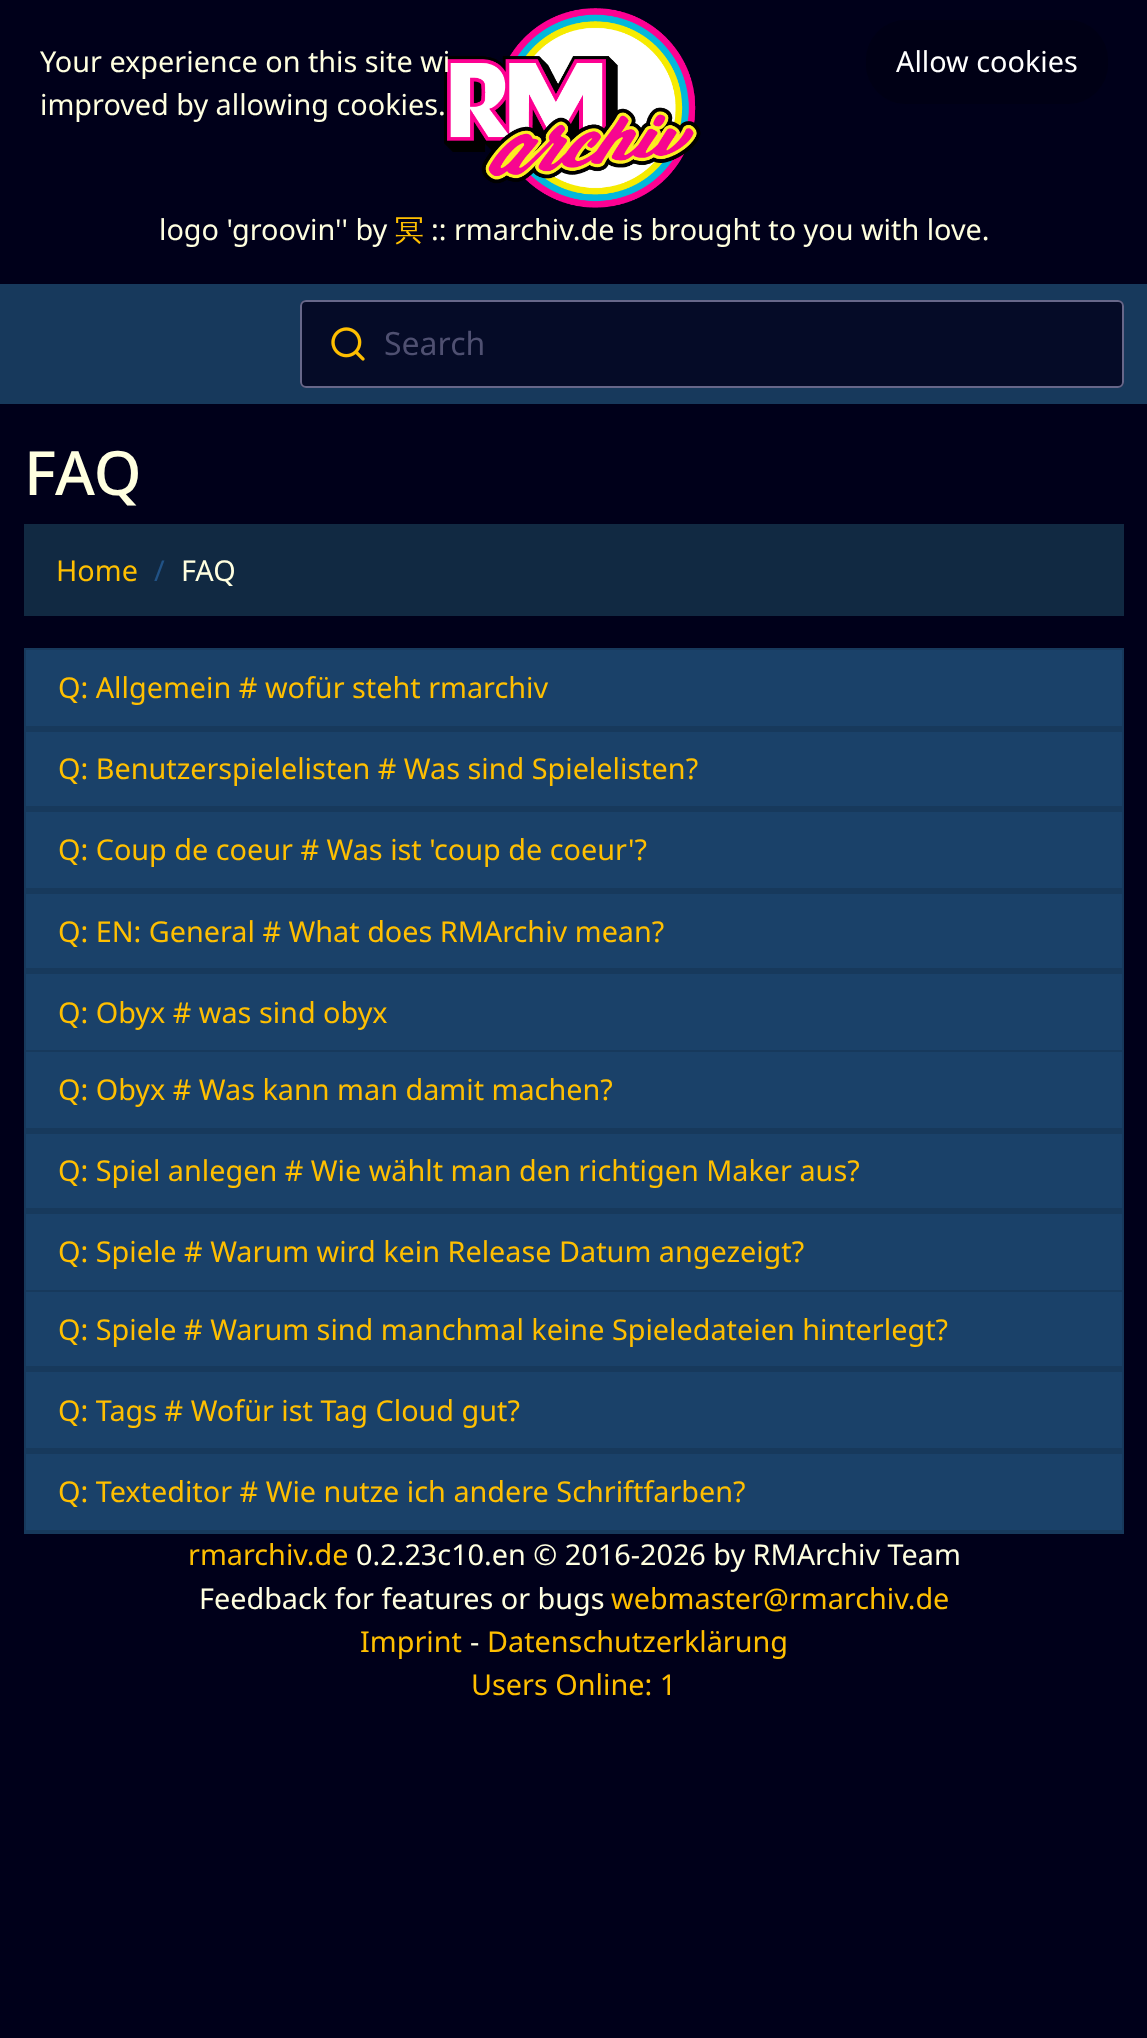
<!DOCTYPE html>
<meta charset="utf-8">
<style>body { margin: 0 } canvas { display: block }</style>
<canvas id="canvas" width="1147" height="2038"></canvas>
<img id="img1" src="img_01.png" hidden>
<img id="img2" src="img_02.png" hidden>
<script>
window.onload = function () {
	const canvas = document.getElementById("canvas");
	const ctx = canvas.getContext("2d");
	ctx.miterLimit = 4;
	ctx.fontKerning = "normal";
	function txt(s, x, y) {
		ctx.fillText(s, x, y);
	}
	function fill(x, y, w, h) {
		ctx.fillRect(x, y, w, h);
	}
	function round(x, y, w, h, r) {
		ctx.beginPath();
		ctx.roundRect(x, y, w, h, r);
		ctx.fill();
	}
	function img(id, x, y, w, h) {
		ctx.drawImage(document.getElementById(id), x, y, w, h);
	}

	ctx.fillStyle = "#00001A";
	fill(0, 0, 1147, 2038);
	ctx.fillStyle = "#000015";
	round(866, 20, 242, 84, 40);
	img("img1", 444, 8, 257, 200);
	ctx.fillStyle = "#17395C";
	fill(0, 284, 1147, 120);
	ctx.fillStyle = "#050B27";
	round(300, 300, 824, 88, 6);
	ctx.beginPath();
	ctx.roundRect(301, 301, 822, 86, 5);
	ctx.strokeStyle = "rgba(128, 126, 163, 0.8)";
	ctx.lineWidth = 2;
	ctx.stroke();
	img("img2", 331, 327, 34, 34);
	ctx.fillStyle = "#112942";
	fill(24, 524, 1100, 92);
	ctx.strokeStyle = "#17395C";
	ctx.strokeRect(25, 649, 1098, 80);
	ctx.fillStyle = "#1A4169";
	fill(26, 650, 1096, 76);
	ctx.fillStyle = "#17395C";
	fill(26, 726, 1096, 2);
	ctx.strokeRect(25, 731, 1098, 78);
	ctx.fillStyle = "#1A4169";
	fill(26, 732, 1096, 74);
	ctx.fillStyle = "#17395C";
	fill(26, 806, 1096, 2);
	ctx.strokeRect(25, 811, 1098, 80);
	ctx.fillStyle = "#1A4169";
	fill(26, 812, 1096, 76);
	ctx.fillStyle = "#17395C";
	fill(26, 888, 1096, 2);
	ctx.strokeRect(25, 893, 1098, 78);
	ctx.fillStyle = "#1A4169";
	fill(26, 894, 1096, 74);
	ctx.fillStyle = "#17395C";
	fill(26, 968, 1096, 2);
	ctx.strokeRect(25, 973, 1098, 158);
	ctx.fillStyle = "#1A4169";
	fill(26, 974, 1096, 76);
	ctx.fillStyle = "#17395C";
	fill(26, 1050, 1096, 2);
	ctx.fillStyle = "#1A4169";
	fill(26, 1052, 1096, 76);
	ctx.fillStyle = "#17395C";
	fill(26, 1128, 1096, 2);
	ctx.strokeRect(25, 1133, 1098, 78);
	ctx.fillStyle = "#1A4169";
	fill(26, 1134, 1096, 74);
	ctx.fillStyle = "#17395C";
	fill(26, 1208, 1096, 2);
	ctx.strokeRect(25, 1213, 1098, 156);
	ctx.fillStyle = "#1A4169";
	fill(26, 1214, 1096, 76);
	ctx.fillStyle = "#17395C";
	fill(26, 1290, 1096, 2);
	ctx.fillStyle = "#1A4169";
	fill(26, 1292, 1096, 74);
	ctx.fillStyle = "#17395C";
	fill(26, 1366, 1096, 2);
	ctx.strokeRect(25, 1371, 1098, 80);
	ctx.fillStyle = "#1A4169";
	fill(26, 1372, 1096, 76);
	ctx.fillStyle = "#17395C";
	fill(26, 1448, 1096, 2);
	ctx.strokeRect(25, 1453, 1098, 80);
	ctx.fillStyle = "#1A4169";
	fill(26, 1454, 1096, 76);
	ctx.fillStyle = "#17395C";
	fill(26, 1530, 1096, 2);
	ctx.font = "28.8px Noto Sans";
	ctx.fillStyle = "#FFFFE0";
	txt("Your experience on this site wi", 40, 72);
	txt("improved by allowing cookies.", 40, 115);
	ctx.fillStyle = "#FFFFFF";
	txt("Allow cookies", 896, 72);
	ctx.fillStyle = "#FFFFE0";
	txt("logo 'groovin'' by", 159, 240);
	ctx.font = "500 28.8px WenQuanYi Zen Hei";
	ctx.fillStyle = "#FFBF00";
	txt("冥", 395, 240);
	ctx.font = "28.8px Noto Sans";
	ctx.fillStyle = "#FFFFE0";
	txt(":: rmarchiv.de is brought to you with love.", 431, 240);
	ctx.font = "32px Noto Sans";
	ctx.fillStyle = "#4F5071";
	txt("Search", 384, 355);
	ctx.font = "500 61px Noto Sans";
	ctx.fillStyle = "#FFFFE0";
	txt("FAQ", 24, 495);
	ctx.font = "28.8px Noto Sans";
	ctx.fillStyle = "#FFBF00";
	txt("Home", 56, 581);
	ctx.fillStyle = "#215285";
	txt("/", 154, 581);
	ctx.fillStyle = "#FFFFE0";
	txt("FAQ", 181, 581);
	ctx.fillStyle = "#FFBF00";
	txt("Q: Allgemein # wofür steht rmarchiv", 58, 698);
	txt("Q: Benutzerspielelisten # Was sind Spielelisten?", 58, 779);
	txt("Q: Coup de coeur # Was ist 'coup de coeur'?", 58, 860);
	txt("Q: EN: General # What does RMArchiv mean?", 58, 942);
	txt("Q: Obyx # was sind obyx", 58, 1023);
	txt("Q: Obyx # Was kann man damit machen?", 58, 1100);
	txt("Q: Spiel anlegen # Wie wählt man den richtigen Maker aus?", 58, 1181);
	txt("Q: Spiele # Warum wird kein Release Datum angezeigt?", 58, 1262);
	txt("Q: Spiele # Warum sind manchmal keine Spieledateien hinterlegt?", 58, 1340);
	txt("Q: Tags # Wofür ist Tag Cloud gut?", 58, 1421);
	txt("Q: Texteditor # Wie nutze ich andere Schriftfarben?", 58, 1502);
	txt("rmarchiv.de", 188, 1565);
	ctx.fillStyle = "#FFFFE0";
	txt("0.2.23c10.en © 2016-2026 by RMArchiv Team", 356, 1565);
	txt("Feedback for features or bugs", 199, 1609);
	ctx.fillStyle = "#FFBF00";
	txt("webmaster@rmarchiv.de", 611, 1609);
	txt("Imprint", 360, 1652);
	ctx.fillStyle = "#FFFFE0";
	txt("-", 470, 1652);
	ctx.fillStyle = "#FFBF00";
	txt("Datenschutzerklärung", 487, 1652);
	txt("Users Online: 1", 471, 1695);
};
</script>
